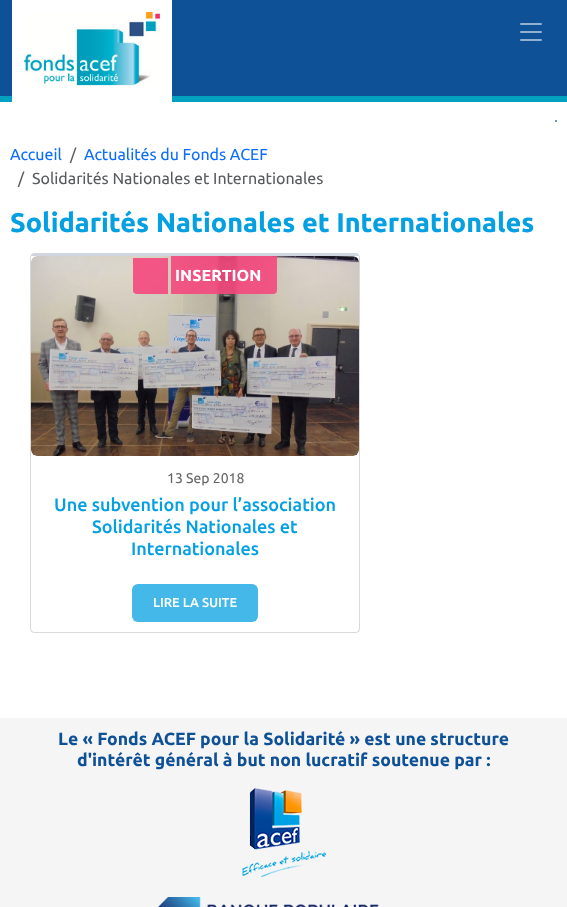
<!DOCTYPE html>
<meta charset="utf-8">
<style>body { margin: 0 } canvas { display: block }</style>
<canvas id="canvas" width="567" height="907"></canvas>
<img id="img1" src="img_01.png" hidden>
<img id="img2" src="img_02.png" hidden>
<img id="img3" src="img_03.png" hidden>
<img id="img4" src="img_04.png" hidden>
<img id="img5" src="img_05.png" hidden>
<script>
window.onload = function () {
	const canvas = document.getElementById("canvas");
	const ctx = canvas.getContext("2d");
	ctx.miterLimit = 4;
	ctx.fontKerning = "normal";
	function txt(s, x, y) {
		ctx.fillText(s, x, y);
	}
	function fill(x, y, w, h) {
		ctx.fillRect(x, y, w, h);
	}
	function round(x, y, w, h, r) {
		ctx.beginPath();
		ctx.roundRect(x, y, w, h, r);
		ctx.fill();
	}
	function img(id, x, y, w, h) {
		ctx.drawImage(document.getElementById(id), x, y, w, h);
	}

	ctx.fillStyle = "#FFFFFF";
	fill(0, 0, 567, 907);
	ctx.fillStyle = "#0F5197";
	fill(0, 0, 567, 96);
	ctx.fillStyle = "#00A0C0";
	fill(0, 96, 567, 6);
	ctx.fillStyle = "#FFFFFF";
	fill(12, 0, 160, 102);
	img("img1", 24, 12, 136, 76);
	img("img2", 520, 23, 22, 18);
	ctx.fillStyle = "#1E7AB9";
	ctx.beginPath();
	ctx.arc(556, 121, 1, 0, Math.PI * 2);
	ctx.fill();
	ctx.fillStyle = "#D2D6DE";
	ctx.beginPath();
	ctx.moveTo(34, 253);
	ctx.bezierCurveTo(33, 253, 31, 254, 31, 255);
	ctx.lineTo(31, 256);
	ctx.lineTo(34, 256);
	ctx.lineTo(356, 256);
	ctx.lineTo(359, 256);
	ctx.lineTo(359, 255);
	ctx.bezierCurveTo(359, 254, 357, 253, 356, 253);
	ctx.closePath();
	ctx.fill();
	ctx.fillStyle = "#D9D9D9";
	ctx.beginPath();
	ctx.moveTo(360, 629);
	ctx.lineTo(360, 257);
	ctx.lineTo(359, 255);
	ctx.lineTo(359, 256);
	ctx.lineTo(359, 629);
	ctx.lineTo(358, 631);
	ctx.lineTo(359, 632);
	ctx.closePath();
	ctx.fill();
	ctx.fillStyle = "rgba(0, 0, 0, 0.15)";
	ctx.beginPath();
	ctx.moveTo(34, 633);
	ctx.lineTo(356, 633);
	ctx.lineTo(359, 632);
	ctx.lineTo(358, 631);
	ctx.lineTo(356, 632);
	ctx.lineTo(34, 632);
	ctx.lineTo(32, 631);
	ctx.lineTo(31, 632);
	ctx.closePath();
	ctx.fill();
	ctx.beginPath();
	ctx.moveTo(30, 257);
	ctx.lineTo(30, 629);
	ctx.lineTo(31, 632);
	ctx.lineTo(32, 631);
	ctx.lineTo(31, 629);
	ctx.lineTo(31, 256);
	ctx.lineTo(31, 255);
	ctx.closePath();
	ctx.fill();
	img("img3", 31, 256, 328, 200);
	ctx.fillStyle = "rgba(245, 72, 125, 0.9)";
	ctx.beginPath();
	ctx.roundRect(133, 258, 35, 36, [0, 0, 0, 4]);
	ctx.fill();
	ctx.beginPath();
	ctx.roundRect(171, 256, 106, 38, [0, 0, 4, 0]);
	ctx.fill();
	ctx.fillStyle = "#43B8E9";
	round(132, 584, 126, 38, 6);
	ctx.fillStyle = "#F5F5F5";
	fill(0, 718, 567, 189);
	img("img4", 242, 788, 84, 89);
	img("img5", 158, 897, 221, 10);
	ctx.font = "16px Ubuntu";
	ctx.fillStyle = "#0D6EFD";
	txt("Accueil", 10, 160);
	ctx.fillStyle = "#595C5F";
	txt("/", 70, 160);
	ctx.fillStyle = "#0D6EFD";
	txt("Actualités du Fonds ACEF", 84, 160);
	ctx.fillStyle = "#595C5F";
	txt("/", 18, 184);
	txt("Solidarités Nationales et Internationales", 32, 184);
	ctx.font = "bold 27px Ubuntu";
	ctx.fillStyle = "#04A0E2";
	txt("Solidarités Nationales et Internationales", 10, 232);
	ctx.font = "bold 16px Ubuntu";
	ctx.fillStyle = "#FFFFFF";
	txt("INSERTION", 175, 281);
	ctx.font = "14px Ubuntu";
	ctx.fillStyle = "#666666";
	txt("13 Sep 2018", 167, 483);
	ctx.font = "500 18px Ubuntu";
	ctx.fillStyle = "#04A0E2";
	txt("Une subvention pour l’association", 54, 511);
	txt("Solidarités Nationales et", 92, 533);
	txt("Internationales", 131, 555);
	ctx.font = "500 13px Ubuntu";
	ctx.fillStyle = "#FFFFFF";
	txt("LIRE LA SUITE", 153, 607);
	ctx.font = "bold 17.6px Ubuntu";
	ctx.fillStyle = "#0F5197";
	txt("Le « Fonds ACEF pour la Solidarité » est une structure", 58, 745);
	txt("d'intérêt général à but non lucratif soutenue par :", 77, 766);
};
</script>
